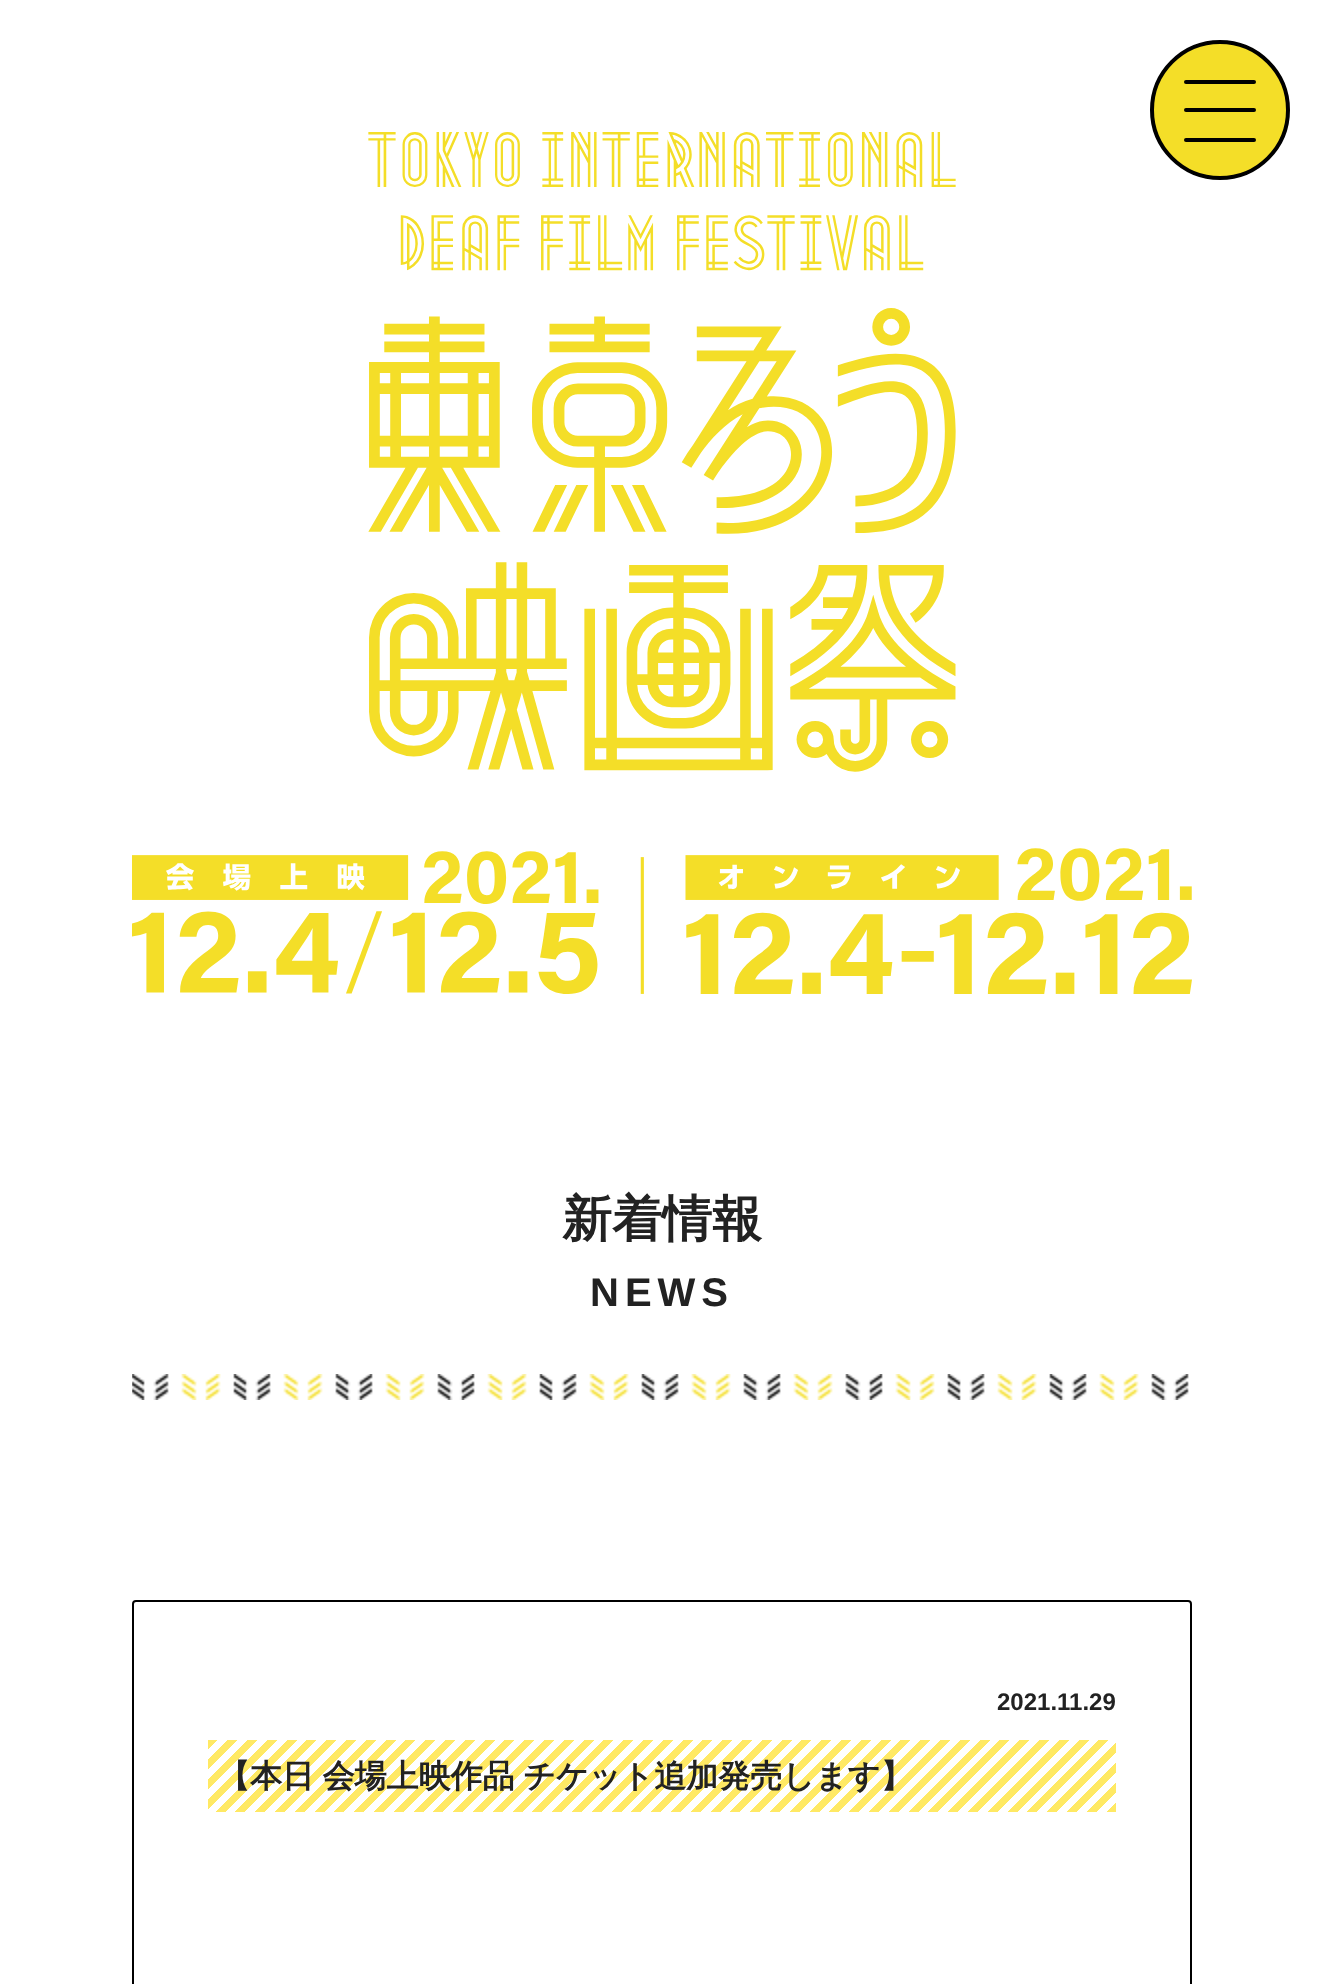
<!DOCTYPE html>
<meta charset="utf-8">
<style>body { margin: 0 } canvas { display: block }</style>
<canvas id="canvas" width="1323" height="1984"></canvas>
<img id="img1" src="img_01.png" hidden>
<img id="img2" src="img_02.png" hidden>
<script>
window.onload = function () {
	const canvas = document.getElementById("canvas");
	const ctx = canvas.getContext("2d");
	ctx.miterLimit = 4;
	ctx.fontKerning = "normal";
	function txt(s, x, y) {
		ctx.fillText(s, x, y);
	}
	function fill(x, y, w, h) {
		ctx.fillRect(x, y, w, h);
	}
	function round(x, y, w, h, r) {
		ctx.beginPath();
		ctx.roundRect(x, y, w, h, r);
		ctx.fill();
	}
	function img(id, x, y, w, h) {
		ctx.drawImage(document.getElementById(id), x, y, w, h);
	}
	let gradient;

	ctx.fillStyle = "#FFFFFF";
	fill(0, 0, 1323, 1984);
	img("img1", 132, 132, 1060, 862);
	ctx.fillStyle = "#F4DE28";
	ctx.beginPath();
	ctx.arc(1220, 110, 68, 0, Math.PI * 2);
	ctx.fill();
	ctx.strokeStyle = "#000000";
	ctx.lineWidth = 4;
	ctx.stroke();
	ctx.fillStyle = "#000000";
	round(1184, 80, 72, 4, 2);
	round(1184, 108, 72, 4, 2);
	round(1184, 138, 72, 4, 2);
	img("img2", 132, 1374, 1057, 26);
	ctx.beginPath();
	ctx.roundRect(133, 1601, 1058, 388, 3);
	ctx.lineWidth = 2;
	ctx.stroke();
	gradient = ctx.createLinearGradient(907, 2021, 412, 1526);
	gradient.addColorStop(0, "#FFE964");
	gradient.addColorStop(0.01, "#FFE964");
	gradient.addColorStop(0.01, "#FFFFFF");
	gradient.addColorStop(0.02, "#FFFFFF");
	gradient.addColorStop(0.02, "#FFE964");
	gradient.addColorStop(0.03, "#FFE964");
	gradient.addColorStop(0.03, "#FFFFFF");
	gradient.addColorStop(0.04, "#FFFFFF");
	gradient.addColorStop(0.04, "#FFE964");
	gradient.addColorStop(0.05, "#FFE964");
	gradient.addColorStop(0.05, "#FFFFFF");
	gradient.addColorStop(0.06, "#FFFFFF");
	gradient.addColorStop(0.06, "#FFE964");
	gradient.addColorStop(0.07, "#FFE964");
	gradient.addColorStop(0.07, "#FFFFFF");
	gradient.addColorStop(0.08, "#FFFFFF");
	gradient.addColorStop(0.08, "#FFE964");
	gradient.addColorStop(0.09, "#FFE964");
	gradient.addColorStop(0.09, "#FFFFFF");
	gradient.addColorStop(0.1, "#FFFFFF");
	gradient.addColorStop(0.1, "#FFE964");
	gradient.addColorStop(0.11, "#FFE964");
	gradient.addColorStop(0.11, "#FFFFFF");
	gradient.addColorStop(0.12, "#FFFFFF");
	gradient.addColorStop(0.12, "#FFE964");
	gradient.addColorStop(0.13, "#FFE964");
	gradient.addColorStop(0.13, "#FFFFFF");
	gradient.addColorStop(0.14, "#FFFFFF");
	gradient.addColorStop(0.14, "#FFE964");
	gradient.addColorStop(0.15, "#FFE964");
	gradient.addColorStop(0.15, "#FFFFFF");
	gradient.addColorStop(0.16, "#FFFFFF");
	gradient.addColorStop(0.16, "#FFE964");
	gradient.addColorStop(0.17, "#FFE964");
	gradient.addColorStop(0.17, "#FFFFFF");
	gradient.addColorStop(0.18, "#FFFFFF");
	gradient.addColorStop(0.18, "#FFE964");
	gradient.addColorStop(0.19, "#FFE964");
	gradient.addColorStop(0.19, "#FFFFFF");
	gradient.addColorStop(0.2, "#FFFFFF");
	gradient.addColorStop(0.2, "#FFE964");
	gradient.addColorStop(0.21, "#FFE964");
	gradient.addColorStop(0.21, "#FFFFFF");
	gradient.addColorStop(0.22, "#FFFFFF");
	gradient.addColorStop(0.22, "#FFE964");
	gradient.addColorStop(0.23, "#FFE964");
	gradient.addColorStop(0.23, "#FFFFFF");
	gradient.addColorStop(0.24, "#FFFFFF");
	gradient.addColorStop(0.24, "#FFE964");
	gradient.addColorStop(0.25, "#FFE964");
	gradient.addColorStop(0.25, "#FFFFFF");
	gradient.addColorStop(0.26, "#FFFFFF");
	gradient.addColorStop(0.26, "#FFE964");
	gradient.addColorStop(0.27, "#FFE964");
	gradient.addColorStop(0.27, "#FFFFFF");
	gradient.addColorStop(0.28, "#FFFFFF");
	gradient.addColorStop(0.28, "#FFE964");
	gradient.addColorStop(0.29, "#FFE964");
	gradient.addColorStop(0.29, "#FFFFFF");
	gradient.addColorStop(0.3, "#FFFFFF");
	gradient.addColorStop(0.3, "#FFE964");
	gradient.addColorStop(0.31, "#FFE964");
	gradient.addColorStop(0.31, "#FFFFFF");
	gradient.addColorStop(0.32, "#FFFFFF");
	gradient.addColorStop(0.32, "#FFE964");
	gradient.addColorStop(0.33, "#FFE964");
	gradient.addColorStop(0.33, "#FFFFFF");
	gradient.addColorStop(0.34, "#FFFFFF");
	gradient.addColorStop(0.34, "#FFE964");
	gradient.addColorStop(0.35, "#FFE964");
	gradient.addColorStop(0.35, "#FFFFFF");
	gradient.addColorStop(0.36, "#FFFFFF");
	gradient.addColorStop(0.36, "#FFE964");
	gradient.addColorStop(0.37, "#FFE964");
	gradient.addColorStop(0.37, "#FFFFFF");
	gradient.addColorStop(0.38, "#FFFFFF");
	gradient.addColorStop(0.38, "#FFE964");
	gradient.addColorStop(0.39, "#FFE964");
	gradient.addColorStop(0.39, "#FFFFFF");
	gradient.addColorStop(0.4, "#FFFFFF");
	gradient.addColorStop(0.4, "#FFE964");
	gradient.addColorStop(0.41, "#FFE964");
	gradient.addColorStop(0.41, "#FFFFFF");
	gradient.addColorStop(0.42, "#FFFFFF");
	gradient.addColorStop(0.42, "#FFE964");
	gradient.addColorStop(0.43, "#FFE964");
	gradient.addColorStop(0.43, "#FFFFFF");
	gradient.addColorStop(0.44, "#FFFFFF");
	gradient.addColorStop(0.44, "#FFE964");
	gradient.addColorStop(0.45, "#FFE964");
	gradient.addColorStop(0.45, "#FFFFFF");
	gradient.addColorStop(0.46, "#FFFFFF");
	gradient.addColorStop(0.46, "#FFE964");
	gradient.addColorStop(0.47, "#FFE964");
	gradient.addColorStop(0.47, "#FFFFFF");
	gradient.addColorStop(0.48, "#FFFFFF");
	gradient.addColorStop(0.48, "#FFE964");
	gradient.addColorStop(0.49, "#FFE964");
	gradient.addColorStop(0.49, "#FFFFFF");
	gradient.addColorStop(0.5, "#FFFFFF");
	gradient.addColorStop(0.5, "#FFE964");
	gradient.addColorStop(0.51, "#FFE964");
	gradient.addColorStop(0.51, "#FFFFFF");
	gradient.addColorStop(0.52, "#FFFFFF");
	gradient.addColorStop(0.52, "#FFE964");
	gradient.addColorStop(0.53, "#FFE964");
	gradient.addColorStop(0.53, "#FFFFFF");
	gradient.addColorStop(0.54, "#FFFFFF");
	gradient.addColorStop(0.54, "#FFE964");
	gradient.addColorStop(0.55, "#FFE964");
	gradient.addColorStop(0.55, "#FFFFFF");
	gradient.addColorStop(0.56, "#FFFFFF");
	gradient.addColorStop(0.56, "#FFE964");
	gradient.addColorStop(0.57, "#FFE964");
	gradient.addColorStop(0.57, "#FFFFFF");
	gradient.addColorStop(0.58, "#FFFFFF");
	gradient.addColorStop(0.58, "#FFE964");
	gradient.addColorStop(0.59, "#FFE964");
	gradient.addColorStop(0.59, "#FFFFFF");
	gradient.addColorStop(0.6, "#FFFFFF");
	gradient.addColorStop(0.6, "#FFE964");
	gradient.addColorStop(0.61, "#FFE964");
	gradient.addColorStop(0.61, "#FFFFFF");
	gradient.addColorStop(0.62, "#FFFFFF");
	gradient.addColorStop(0.62, "#FFE964");
	gradient.addColorStop(0.63, "#FFE964");
	gradient.addColorStop(0.63, "#FFFFFF");
	gradient.addColorStop(0.64, "#FFFFFF");
	gradient.addColorStop(0.64, "#FFE964");
	gradient.addColorStop(0.65, "#FFE964");
	gradient.addColorStop(0.65, "#FFFFFF");
	gradient.addColorStop(0.66, "#FFFFFF");
	gradient.addColorStop(0.66, "#FFE964");
	gradient.addColorStop(0.67, "#FFE964");
	gradient.addColorStop(0.67, "#FFFFFF");
	gradient.addColorStop(0.68, "#FFFFFF");
	gradient.addColorStop(0.68, "#FFE964");
	gradient.addColorStop(0.69, "#FFE964");
	gradient.addColorStop(0.69, "#FFFFFF");
	gradient.addColorStop(0.7, "#FFFFFF");
	gradient.addColorStop(0.7, "#FFE964");
	gradient.addColorStop(0.71, "#FFE964");
	gradient.addColorStop(0.71, "#FFFFFF");
	gradient.addColorStop(0.72, "#FFFFFF");
	gradient.addColorStop(0.72, "#FFE964");
	gradient.addColorStop(0.73, "#FFE964");
	gradient.addColorStop(0.73, "#FFFFFF");
	gradient.addColorStop(0.74, "#FFFFFF");
	gradient.addColorStop(0.74, "#FFE964");
	gradient.addColorStop(0.75, "#FFE964");
	gradient.addColorStop(0.75, "#FFFFFF");
	gradient.addColorStop(0.76, "#FFFFFF");
	gradient.addColorStop(0.76, "#FFE964");
	gradient.addColorStop(0.77, "#FFE964");
	gradient.addColorStop(0.77, "#FFFFFF");
	gradient.addColorStop(0.78, "#FFFFFF");
	gradient.addColorStop(0.78, "#FFE964");
	gradient.addColorStop(0.79, "#FFE964");
	gradient.addColorStop(0.79, "#FFFFFF");
	gradient.addColorStop(0.8, "#FFFFFF");
	gradient.addColorStop(0.8, "#FFE964");
	gradient.addColorStop(0.81, "#FFE964");
	gradient.addColorStop(0.81, "#FFFFFF");
	gradient.addColorStop(0.82, "#FFFFFF");
	gradient.addColorStop(0.82, "#FFE964");
	gradient.addColorStop(0.83, "#FFE964");
	gradient.addColorStop(0.83, "#FFFFFF");
	gradient.addColorStop(0.84, "#FFFFFF");
	gradient.addColorStop(0.84, "#FFE964");
	gradient.addColorStop(0.85, "#FFE964");
	gradient.addColorStop(0.85, "#FFFFFF");
	gradient.addColorStop(0.86, "#FFFFFF");
	gradient.addColorStop(0.86, "#FFE964");
	gradient.addColorStop(0.87, "#FFE964");
	gradient.addColorStop(0.87, "#FFFFFF");
	gradient.addColorStop(0.88, "#FFFFFF");
	gradient.addColorStop(0.88, "#FFE964");
	gradient.addColorStop(0.89, "#FFE964");
	gradient.addColorStop(0.89, "#FFFFFF");
	gradient.addColorStop(0.9, "#FFFFFF");
	gradient.addColorStop(0.9, "#FFE964");
	gradient.addColorStop(0.91, "#FFE964");
	gradient.addColorStop(0.91, "#FFFFFF");
	gradient.addColorStop(0.92, "#FFFFFF");
	gradient.addColorStop(0.92, "#FFE964");
	gradient.addColorStop(0.93, "#FFE964");
	gradient.addColorStop(0.93, "#FFFFFF");
	gradient.addColorStop(0.94, "#FFFFFF");
	gradient.addColorStop(0.94, "#FFE964");
	gradient.addColorStop(0.95, "#FFE964");
	gradient.addColorStop(0.95, "#FFFFFF");
	gradient.addColorStop(0.96, "#FFFFFF");
	gradient.addColorStop(0.96, "#FFE964");
	gradient.addColorStop(0.97, "#FFE964");
	gradient.addColorStop(0.97, "#FFFFFF");
	gradient.addColorStop(0.98, "#FFFFFF");
	gradient.addColorStop(0.98, "#FFE964");
	gradient.addColorStop(0.99, "#FFE964");
	gradient.addColorStop(0.99, "#FFFFFF");
	gradient.addColorStop(1, "#FFFFFF");
	ctx.fillStyle = gradient;
	fill(208, 1740, 908, 72);
	ctx.font = "bold 50px WenQuanYi Zen Hei";
	ctx.fillStyle = "#222222";
	txt("新着情報", 562, 1236);
	ctx.letterSpacing = "6px";
	ctx.font = "bold 40px Liberation Sans";
	txt("NEWS", 590, 1306);
	ctx.letterSpacing = "0px";
	ctx.font = "bold 24px Liberation Sans";
	txt("2021.11.29", 997, 1710);
	ctx.wordSpacing = "-1px";
	ctx.font = "bold 32px WenQuanYi Zen Hei";
	txt("【本日 会場上映作品 チケット追加発売します】", 218, 1787);
};
</script>
